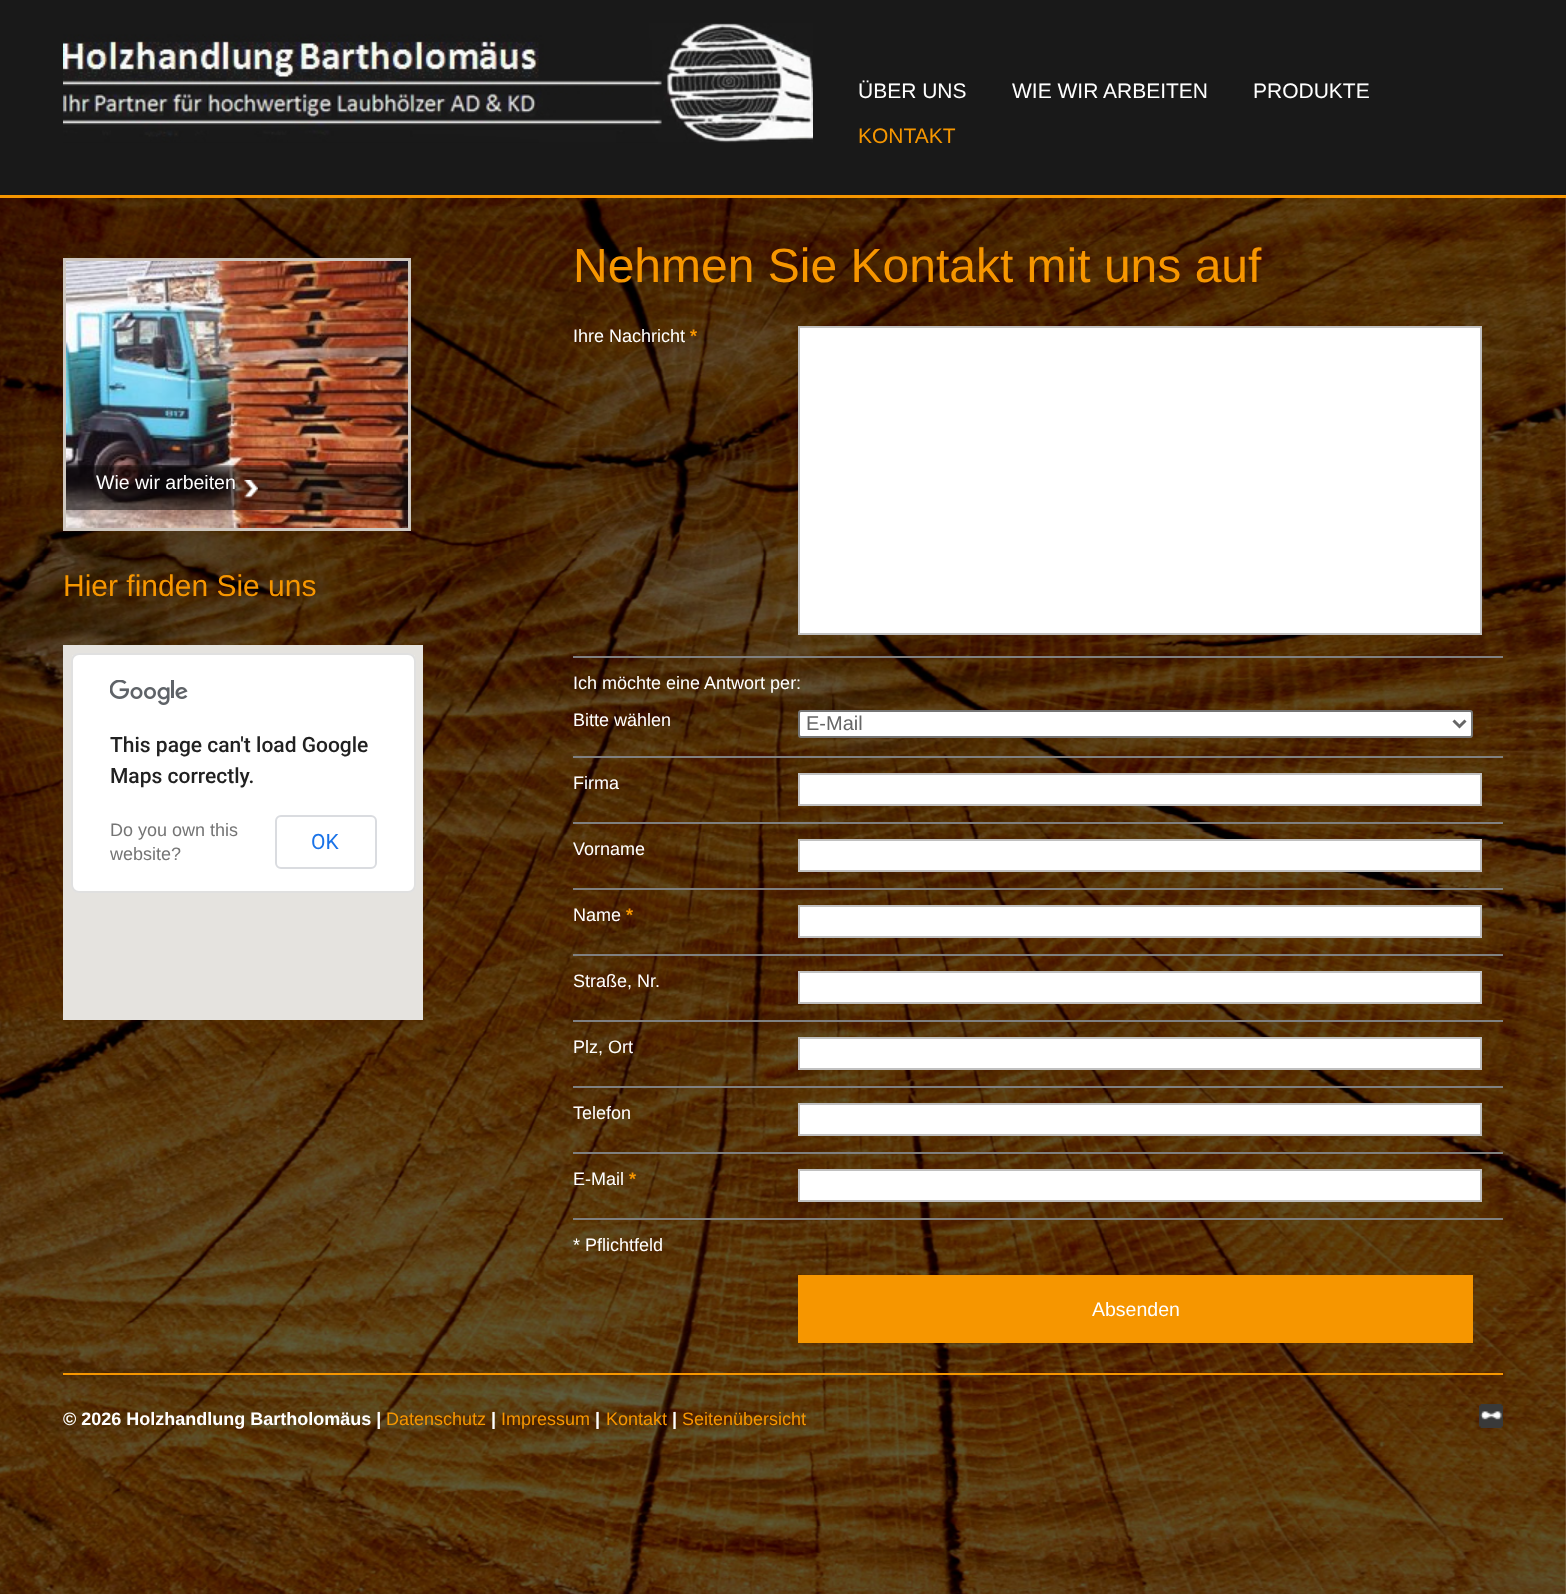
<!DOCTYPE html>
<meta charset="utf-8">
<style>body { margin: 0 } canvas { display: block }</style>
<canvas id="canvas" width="1566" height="1594"></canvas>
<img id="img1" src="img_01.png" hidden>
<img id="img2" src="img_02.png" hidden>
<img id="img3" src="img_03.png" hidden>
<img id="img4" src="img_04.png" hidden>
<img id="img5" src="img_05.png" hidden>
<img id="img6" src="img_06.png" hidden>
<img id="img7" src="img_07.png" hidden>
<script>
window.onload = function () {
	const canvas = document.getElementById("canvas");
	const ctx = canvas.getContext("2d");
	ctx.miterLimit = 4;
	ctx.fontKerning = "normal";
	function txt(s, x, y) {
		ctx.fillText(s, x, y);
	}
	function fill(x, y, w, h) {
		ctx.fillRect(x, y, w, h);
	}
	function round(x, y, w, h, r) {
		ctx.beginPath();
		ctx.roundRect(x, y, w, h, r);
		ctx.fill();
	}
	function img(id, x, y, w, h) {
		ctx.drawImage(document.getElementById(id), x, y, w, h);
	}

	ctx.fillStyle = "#FFFFFF";
	fill(0, 0, 1566, 1594);
	img("img1", 0, 198, 1566, 1396);
	ctx.fillStyle = "#191919";
	fill(0, 0, 1566, 195);
	ctx.fillStyle = "#F69600";
	fill(0, 195, 1566, 3);
	img("img2", 63, 23, 750, 120);
	ctx.strokeStyle = "#CEC7BF";
	ctx.lineWidth = 3;
	ctx.strokeRect(64.5, 259.5, 345, 270);
	img("img3", 66, 261, 342, 267);
	img("img4", 66, 465, 342, 45);
	img("img5", 244, 480, 14, 18);
	ctx.fillStyle = "#E5E3DF";
	fill(63, 645, 360, 375);
	ctx.fillStyle = "#FFFFFF";
	round(71, 653, 345, 240, 8);
	ctx.beginPath();
	ctx.roundRect(72, 654, 343, 238, 7);
	ctx.strokeStyle = "rgba(0, 0, 0, 0.12)";
	ctx.lineWidth = 2;
	ctx.stroke();
	img("img6", 110, 680, 78, 25);
	ctx.beginPath();
	ctx.roundRect(276, 816, 100, 52, 5);
	ctx.strokeStyle = "#DADCE0";
	ctx.stroke();
	ctx.beginPath();
	ctx.rect(799, 327, 682, 307);
	ctx.fill();
	ctx.strokeStyle = "#C0C0C0";
	ctx.stroke();
	ctx.fillStyle = "#808080";
	fill(573, 656, 930, 2);
	ctx.fillStyle = "#FFFFFF";
	ctx.beginPath();
	ctx.roundRect(799, 711, 673, 26, 2);
	ctx.fill();
	ctx.strokeStyle = "#767676";
	ctx.stroke();
	ctx.beginPath();
	ctx.moveTo(1453.5, 720.5);
	ctx.lineTo(1459.5, 726.5);
	ctx.lineTo(1465.5, 720.5);
	ctx.strokeStyle = "#666666";
	ctx.lineWidth = 3;
	ctx.stroke();
	ctx.fillStyle = "#808080";
	fill(573, 756, 930, 2);
	ctx.fillStyle = "#FFFFFF";
	ctx.beginPath();
	ctx.rect(799, 774, 682, 31);
	ctx.fill();
	ctx.strokeStyle = "#C0C0C0";
	ctx.lineWidth = 2;
	ctx.stroke();
	ctx.fillStyle = "#808080";
	fill(573, 822, 930, 2);
	ctx.fillStyle = "#FFFFFF";
	ctx.beginPath();
	ctx.rect(799, 840, 682, 31);
	ctx.fill();
	ctx.stroke();
	ctx.fillStyle = "#808080";
	fill(573, 888, 930, 2);
	ctx.fillStyle = "#FFFFFF";
	ctx.beginPath();
	ctx.rect(799, 906, 682, 31);
	ctx.fill();
	ctx.stroke();
	ctx.fillStyle = "#808080";
	fill(573, 954, 930, 2);
	ctx.fillStyle = "#FFFFFF";
	ctx.beginPath();
	ctx.rect(799, 972, 682, 31);
	ctx.fill();
	ctx.stroke();
	ctx.fillStyle = "#808080";
	fill(573, 1020, 930, 2);
	ctx.fillStyle = "#FFFFFF";
	ctx.beginPath();
	ctx.rect(799, 1038, 682, 31);
	ctx.fill();
	ctx.stroke();
	ctx.fillStyle = "#808080";
	fill(573, 1086, 930, 2);
	ctx.fillStyle = "#FFFFFF";
	ctx.beginPath();
	ctx.rect(799, 1104, 682, 31);
	ctx.fill();
	ctx.stroke();
	ctx.fillStyle = "#808080";
	fill(573, 1152, 930, 2);
	ctx.fillStyle = "#FFFFFF";
	ctx.beginPath();
	ctx.rect(799, 1170, 682, 31);
	ctx.fill();
	ctx.stroke();
	ctx.fillStyle = "#808080";
	fill(573, 1218, 930, 2);
	ctx.fillStyle = "#F69600";
	fill(798, 1275, 675, 68);
	fill(63, 1373, 1440, 2);
	img("img7", 1479, 1404, 24, 24);
	ctx.font = "21px Liberation Sans";
	ctx.fillStyle = "#FFFFFF";
	txt("ÜBER UNS", 858, 98);
	txt("WIE WIR ARBEITEN", 1012, 98);
	txt("PRODUKTE", 1253, 98);
	ctx.fillStyle = "#F69600";
	txt("KONTAKT", 858, 143);
	ctx.font = "19.5px Liberation Sans";
	ctx.fillStyle = "#FFFFFF";
	txt("Wie wir arbeiten", 96, 489);
	ctx.font = "30px Liberation Sans";
	ctx.fillStyle = "#F69600";
	txt("Hier finden Sie uns", 63, 596);
	ctx.font = "500 21px Roboto";
	ctx.fillStyle = "#212121";
	txt("This page can't load Google", 110, 752);
	txt("Maps correctly.", 110, 783);
	ctx.font = "18px Liberation Sans";
	ctx.fillStyle = "#757575";
	txt("Do you own this", 110, 836);
	txt("website?", 110, 860);
	ctx.font = "21px Roboto";
	ctx.fillStyle = "#1A73E8";
	txt("OK", 311, 849);
	ctx.font = "48px Liberation Sans";
	ctx.fillStyle = "#F69600";
	txt("Nehmen Sie Kontakt mit uns auf", 573, 282);
	ctx.font = "18px Liberation Sans";
	ctx.fillStyle = "#FFFFFF";
	txt("Ihre Nachricht", 573, 342);
	ctx.font = "bold 18px Liberation Sans";
	ctx.fillStyle = "#F69600";
	txt("*", 690, 342);
	ctx.font = "18px Liberation Sans";
	ctx.fillStyle = "#FFFFFF";
	txt("Ich möchte eine Antwort per:", 573, 689);
	txt("Bitte wählen", 573, 726);
	ctx.font = "20px Liberation Sans";
	ctx.fillStyle = "#666666";
	txt("E-Mail", 806, 730);
	ctx.font = "18px Liberation Sans";
	ctx.fillStyle = "#FFFFFF";
	txt("Firma", 573, 789);
	txt("Vorname", 573, 855);
	txt("Name", 573, 921);
	ctx.font = "bold 18px Liberation Sans";
	ctx.fillStyle = "#F69600";
	txt("*", 626, 921);
	ctx.font = "18px Liberation Sans";
	ctx.fillStyle = "#FFFFFF";
	txt("Straße, Nr.", 573, 987);
	txt("Plz, Ort", 573, 1053);
	txt("Telefon", 573, 1119);
	txt("E-Mail", 573, 1185);
	ctx.font = "bold 18px Liberation Sans";
	ctx.fillStyle = "#F69600";
	txt("*", 629, 1185);
	ctx.font = "18px Liberation Sans";
	ctx.fillStyle = "#FFFFFF";
	txt("* Pflichtfeld", 573, 1251);
	ctx.font = "19.5px Liberation Sans";
	txt("Absenden", 1092, 1316);
	ctx.font = "bold 18px Liberation Sans";
	txt("© 2026 Holzhandlung Bartholomäus |", 63, 1425);
	ctx.font = "18px Liberation Sans";
	ctx.fillStyle = "#F69600";
	txt("Datenschutz", 386, 1425);
	ctx.font = "bold 18px Liberation Sans";
	ctx.fillStyle = "#FFFFFF";
	txt("|", 491, 1425);
	ctx.font = "18px Liberation Sans";
	ctx.fillStyle = "#F69600";
	txt("Impressum", 501, 1425);
	ctx.font = "bold 18px Liberation Sans";
	ctx.fillStyle = "#FFFFFF";
	txt("|", 595, 1425);
	ctx.font = "18px Liberation Sans";
	ctx.fillStyle = "#F69600";
	txt("Kontakt", 606, 1425);
	ctx.font = "bold 18px Liberation Sans";
	ctx.fillStyle = "#FFFFFF";
	txt("|", 672, 1425);
	ctx.font = "18px Liberation Sans";
	ctx.fillStyle = "#F69600";
	txt("Seitenübersicht", 682, 1425);
};
</script>
